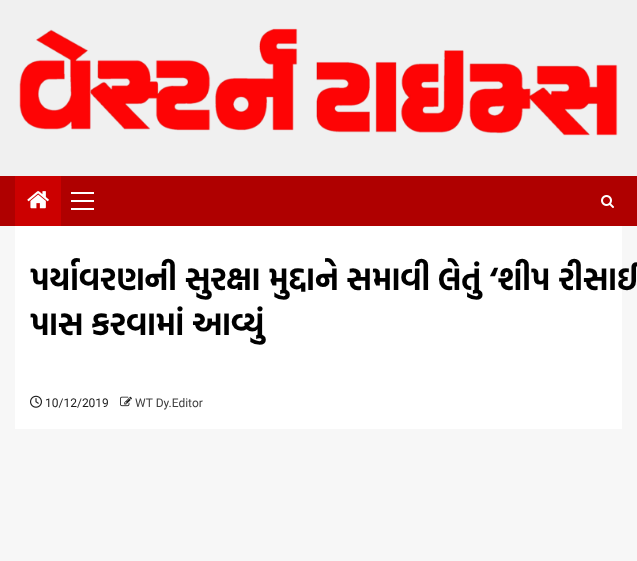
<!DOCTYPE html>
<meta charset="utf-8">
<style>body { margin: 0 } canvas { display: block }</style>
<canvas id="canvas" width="637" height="561"></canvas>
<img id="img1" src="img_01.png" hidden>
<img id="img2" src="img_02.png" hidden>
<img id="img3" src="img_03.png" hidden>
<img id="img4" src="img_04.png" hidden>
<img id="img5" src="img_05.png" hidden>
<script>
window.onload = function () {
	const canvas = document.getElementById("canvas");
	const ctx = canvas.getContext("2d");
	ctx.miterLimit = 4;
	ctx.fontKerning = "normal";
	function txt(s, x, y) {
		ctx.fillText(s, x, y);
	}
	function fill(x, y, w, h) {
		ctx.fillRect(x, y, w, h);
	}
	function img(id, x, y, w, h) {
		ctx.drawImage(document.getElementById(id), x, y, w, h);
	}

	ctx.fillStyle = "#F7F7F7";
	fill(0, 0, 637, 561);
	ctx.fillStyle = "#F0F0F0";
	fill(0, 0, 637, 176);
	img("img1", 19, 28, 599, 108);
	ctx.fillStyle = "#AF0000";
	fill(0, 176, 637, 50);
	ctx.fillStyle = "#CC0000";
	fill(15, 176, 46, 50);
	img("img2", 27, 191, 22, 18);
	ctx.fillStyle = "#FFFFFF";
	fill(71, 200, 23, 2);
	fill(71, 192, 23, 2);
	fill(71, 208, 23, 2);
	img("img3", 601, 195, 13, 13);
	fill(15, 226, 607, 203);
	img("img4", 30, 395, 12, 13);
	img("img5", 120, 396, 12, 11);
	ctx.font = "bold 32px Hind Vadodara";
	ctx.fillStyle = "#000000";
	txt("પર્યાવરણની સુરક્ષા મુદ્દાને સમાવી લેતું ‘શીપ રીસાઈ", 30, 290);
	txt("પાસ કરવામાં આવ્યું", 30, 335);
	ctx.font = "12px Roboto";
	ctx.fillStyle = "#1C1C1C";
	txt("10/12/2019", 45, 407);
	ctx.fillStyle = "#404040";
	txt("WT Dy.Editor", 135, 407);
};
</script>
